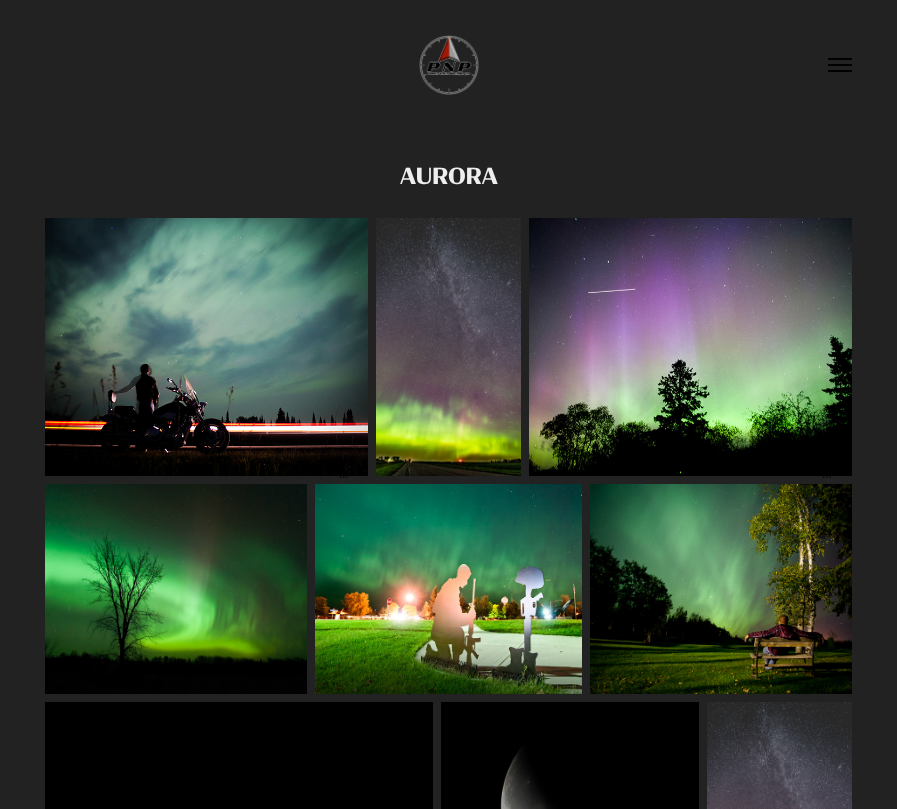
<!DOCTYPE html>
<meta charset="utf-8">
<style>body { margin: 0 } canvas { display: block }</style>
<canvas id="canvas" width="897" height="809"></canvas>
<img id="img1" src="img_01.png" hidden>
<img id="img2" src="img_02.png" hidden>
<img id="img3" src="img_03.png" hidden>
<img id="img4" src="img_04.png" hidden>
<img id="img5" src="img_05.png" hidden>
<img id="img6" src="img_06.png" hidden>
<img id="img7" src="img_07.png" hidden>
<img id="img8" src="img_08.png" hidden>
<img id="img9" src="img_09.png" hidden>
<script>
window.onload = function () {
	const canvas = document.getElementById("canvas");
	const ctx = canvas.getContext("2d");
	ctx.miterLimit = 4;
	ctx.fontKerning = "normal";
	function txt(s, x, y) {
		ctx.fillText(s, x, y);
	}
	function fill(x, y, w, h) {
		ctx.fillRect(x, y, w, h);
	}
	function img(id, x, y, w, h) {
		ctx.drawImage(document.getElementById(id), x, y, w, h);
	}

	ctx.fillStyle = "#222222";
	fill(0, 0, 897, 809);
	img("img1", 419, 35, 60, 60);
	ctx.fillStyle = "#000000";
	fill(828, 58, 24, 2);
	fill(828, 64, 24, 2);
	fill(828, 70, 24, 2);
	img("img2", 376, 218, 145, 258);
	img("img3", 45, 218, 323, 258);
	img("img4", 529, 218, 323, 258);
	img("img5", 45, 484, 262, 210);
	img("img6", 315, 484, 267, 210);
	img("img7", 590, 484, 262, 210);
	fill(45, 702, 388, 107);
	img("img8", 441, 702, 258, 107);
	img("img9", 707, 702, 145, 107);
	ctx.font = "bold 22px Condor";
	ctx.fillStyle = "#EEEEEE";
	txt("AURORA", 400, 184);
	ctx.font = "14px Condor";
	ctx.fillStyle = "#0A0A0A";
	txt("…", 339, 478);
	txt("…", 822, 478);
};
</script>
